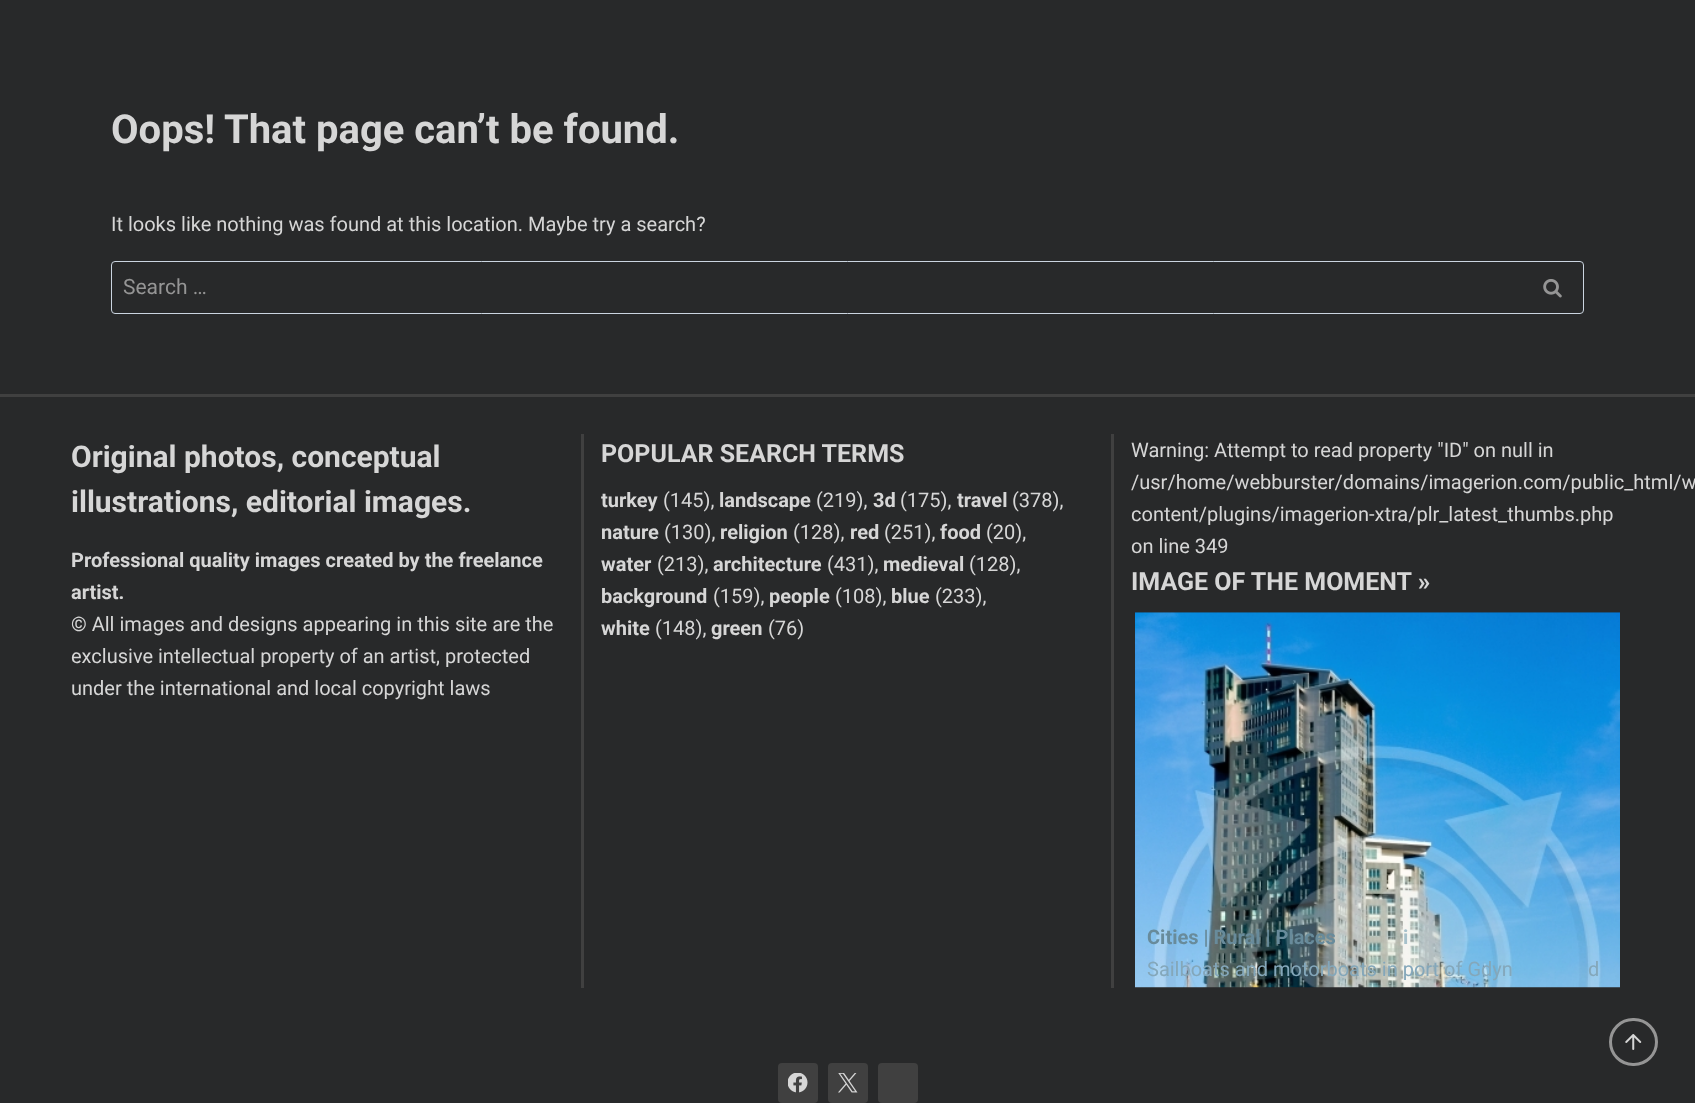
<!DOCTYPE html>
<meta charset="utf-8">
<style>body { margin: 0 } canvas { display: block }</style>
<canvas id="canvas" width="1695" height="1103"></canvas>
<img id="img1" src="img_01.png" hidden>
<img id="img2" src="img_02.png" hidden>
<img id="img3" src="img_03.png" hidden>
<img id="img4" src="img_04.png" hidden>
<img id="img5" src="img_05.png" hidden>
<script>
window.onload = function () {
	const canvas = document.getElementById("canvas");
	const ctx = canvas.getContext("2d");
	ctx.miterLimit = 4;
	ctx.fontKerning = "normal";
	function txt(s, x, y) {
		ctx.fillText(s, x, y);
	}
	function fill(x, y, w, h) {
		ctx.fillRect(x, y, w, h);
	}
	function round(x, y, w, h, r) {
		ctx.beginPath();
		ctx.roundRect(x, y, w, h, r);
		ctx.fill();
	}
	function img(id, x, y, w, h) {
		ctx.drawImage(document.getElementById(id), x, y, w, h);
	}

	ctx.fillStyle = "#28292A";
	fill(0, 0, 1695, 1103);
	ctx.beginPath();
	ctx.roundRect(111.5, 261.5, 1472, 52, 3.5);
	ctx.strokeStyle = "#CBD5E0";
	ctx.stroke();
	img("img1", 1543, 279, 19, 19);
	ctx.fillStyle = "#404040";
	fill(0, 394, 1695, 3);
	fill(581, 434, 3, 554);
	fill(1111, 434, 3, 554);
	img("img2", 1135, 612, 485, 376);
	round(778, 1063, 40, 40, 4);
	img("img3", 788, 1073, 20, 20);
	round(828, 1063, 40, 40, 4);
	img("img4", 838, 1073, 20, 20);
	round(878, 1063, 40, 40, 4);
	ctx.beginPath();
	ctx.roundRect(1610.5, 1019.5, 46, 45, 22.5);
	ctx.strokeStyle = "#959595";
	ctx.lineWidth = 3;
	ctx.stroke();
	img("img5", 1625, 1034, 17, 16);
	ctx.font = "bold 40px Roboto";
	ctx.fillStyle = "#D6D6D6";
	txt("Oops! That page can’t be found.", 111, 143);
	ctx.font = "20px Roboto";
	txt("It looks like nothing was found at this location. Maybe try a search?", 111, 231);
	ctx.font = "21px Roboto";
	ctx.fillStyle = "#959595";
	txt("Search …", 123, 294);
	ctx.font = "bold 30px Roboto";
	ctx.fillStyle = "#D6D6D6";
	txt("Original photos, conceptual", 71, 467);
	txt("illustrations, editorial images.", 71, 512);
	ctx.font = "bold 20px Roboto";
	txt("Professional quality images created by the freelance", 71, 567);
	txt("artist.", 71, 599);
	ctx.font = "20px Roboto";
	txt("© All images and designs appearing in this site are the", 71, 631);
	txt("exclusive intellectual property of an artist, protected", 71, 663);
	txt("under the international and local copyright laws", 71, 695);
	ctx.font = "bold 25px Roboto";
	txt("POPULAR SEARCH TERMS", 601, 462);
	ctx.font = "bold 20px Roboto";
	txt("turkey", 601, 507);
	ctx.font = "20px Roboto";
	txt("(145),", 663, 507);
	ctx.font = "bold 20px Roboto";
	txt("landscape", 719, 507);
	ctx.font = "20px Roboto";
	txt("(219),", 816, 507);
	ctx.font = "bold 20px Roboto";
	txt("3d", 873, 507);
	ctx.font = "20px Roboto";
	txt("(175),", 900, 507);
	ctx.font = "bold 20px Roboto";
	txt("travel", 957, 507);
	ctx.font = "20px Roboto";
	txt("(378),", 1012, 507);
	ctx.font = "bold 20px Roboto";
	txt("nature", 601, 539);
	ctx.font = "20px Roboto";
	txt("(130),", 664, 539);
	ctx.font = "bold 20px Roboto";
	txt("religion", 720, 539);
	ctx.font = "20px Roboto";
	txt("(128),", 793, 539);
	ctx.font = "bold 20px Roboto";
	txt("red", 850, 539);
	ctx.font = "20px Roboto";
	txt("(251),", 884, 539);
	ctx.font = "bold 20px Roboto";
	txt("food", 940, 539);
	ctx.font = "20px Roboto";
	txt("(20),", 986, 539);
	ctx.font = "bold 20px Roboto";
	txt("water", 601, 571);
	ctx.font = "20px Roboto";
	txt("(213),", 657, 571);
	ctx.font = "bold 20px Roboto";
	txt("architecture", 713, 571);
	ctx.font = "20px Roboto";
	txt("(431),", 827, 571);
	ctx.font = "bold 20px Roboto";
	txt("medieval", 883, 571);
	ctx.font = "20px Roboto";
	txt("(128),", 969, 571);
	ctx.font = "bold 20px Roboto";
	txt("background", 601, 603);
	ctx.font = "20px Roboto";
	txt("(159),", 713, 603);
	ctx.font = "bold 20px Roboto";
	txt("people", 769, 603);
	ctx.font = "20px Roboto";
	txt("(108),", 835, 603);
	ctx.font = "bold 20px Roboto";
	txt("blue", 891, 603);
	ctx.font = "20px Roboto";
	txt("(233),", 935, 603);
	ctx.font = "bold 20px Roboto";
	txt("white", 601, 635);
	ctx.font = "20px Roboto";
	txt("(148),", 655, 635);
	ctx.font = "bold 20px Roboto";
	txt("green", 711, 635);
	ctx.font = "20px Roboto";
	txt("(76)", 768, 635);
	txt("Warning: Attempt to read property \"ID\" on null in", 1131, 457);
	txt("/usr/home/webburster/domains/imagerion.com/public_html/w", 1131, 489);
	txt("content/plugins/imagerion-xtra/plr_latest_thumbs.php", 1131, 521);
	txt("on line 349", 1131, 553);
	ctx.font = "bold 25px Roboto";
	txt("IMAGE OF THE MOMENT »", 1131, 590);
	ctx.font = "bold 20px Roboto";
	ctx.fillStyle = "#688B9B";
	txt("Cities | Rural | Places", 1147, 944);
	ctx.fillStyle = "#A7C1CB";
	txt("i", 1403, 944);
	ctx.font = "20px Roboto";
	ctx.fillStyle = "#84A7BA";
	txt("Sailboats and motorboats in port of Gdyn", 1147, 976);
	txt("d", 1588, 976);
};
</script>
